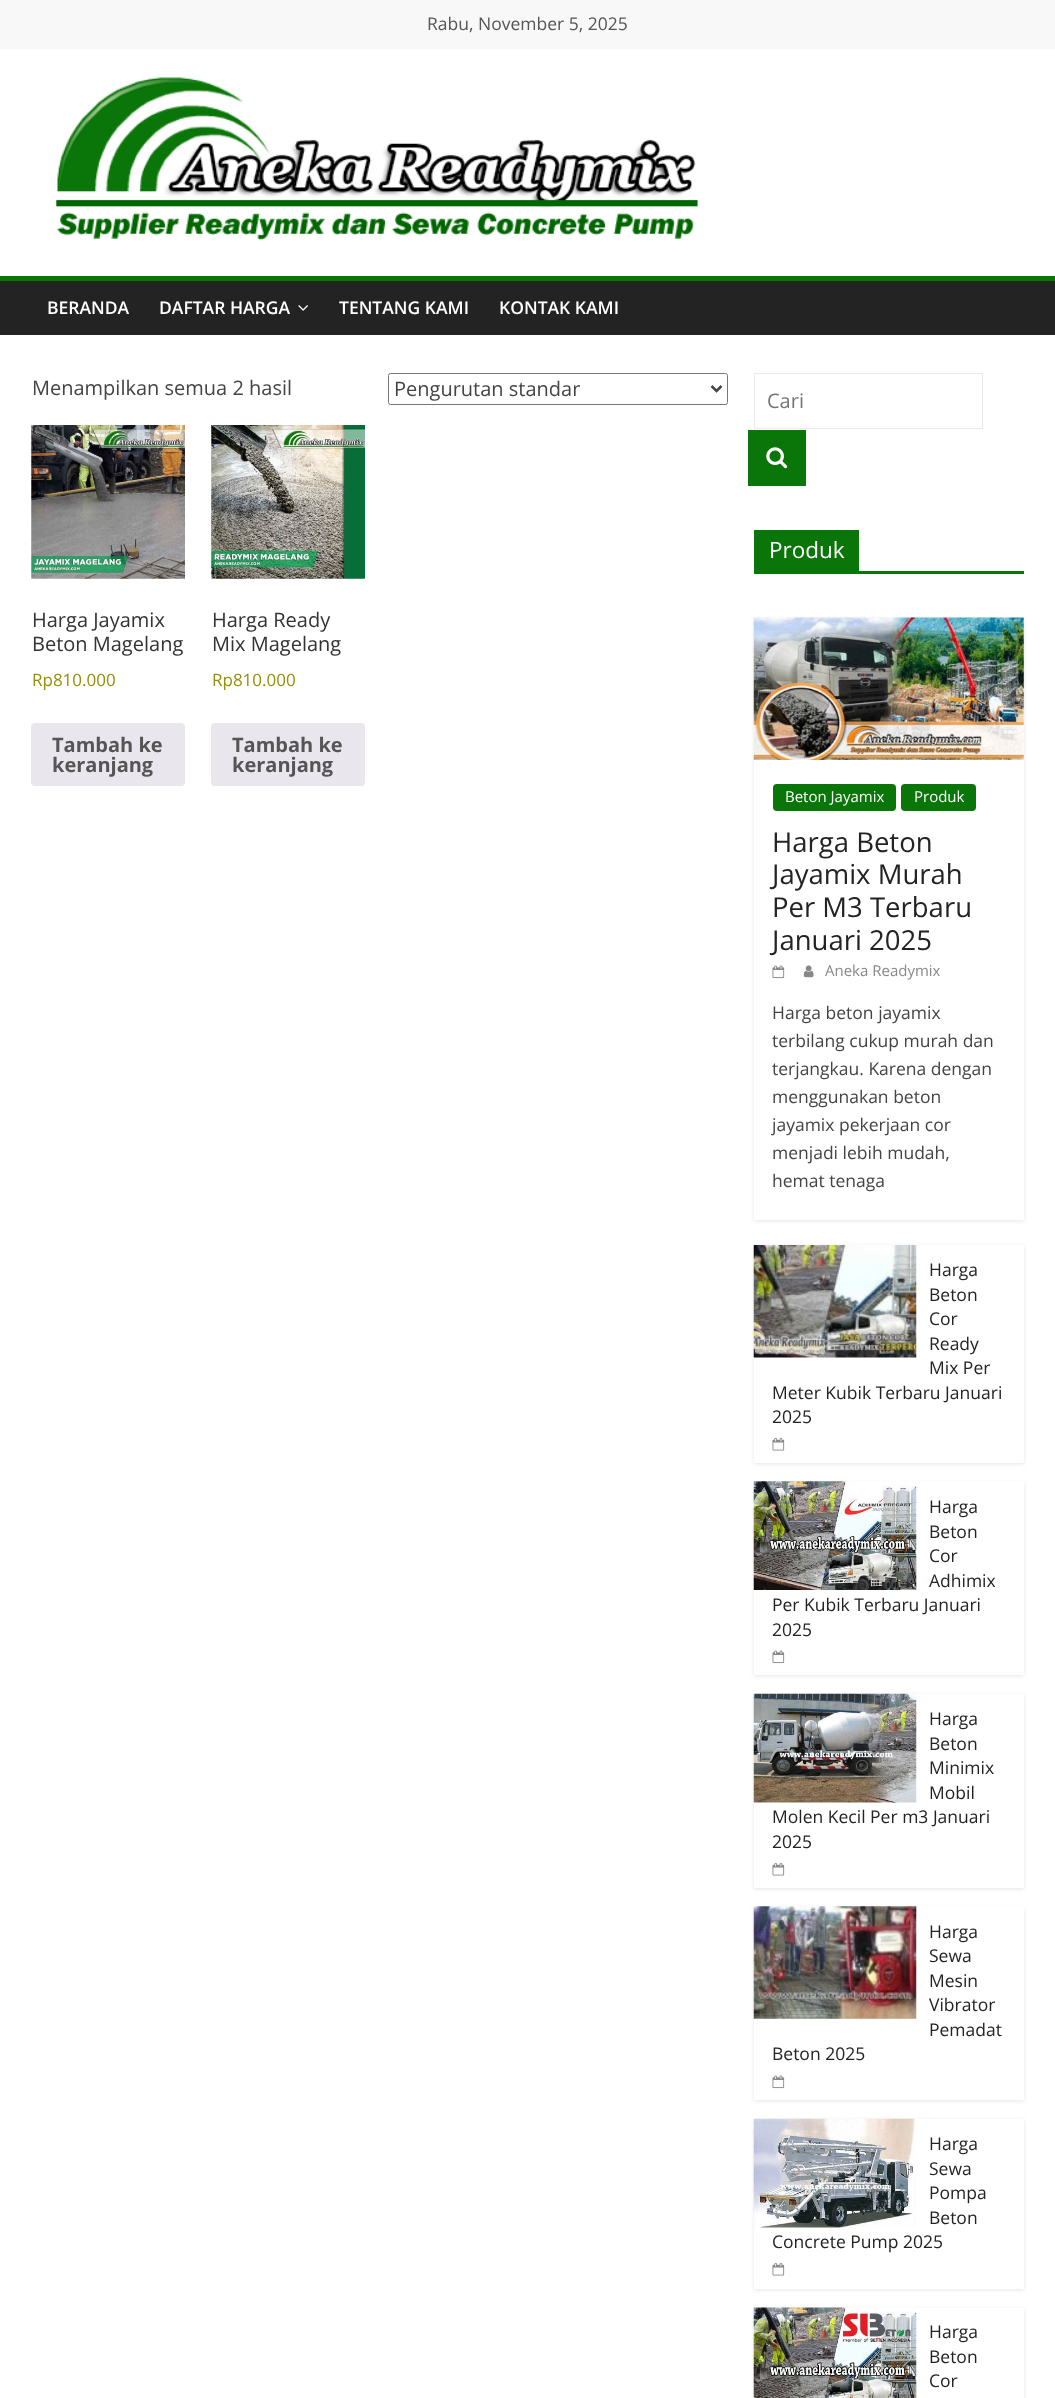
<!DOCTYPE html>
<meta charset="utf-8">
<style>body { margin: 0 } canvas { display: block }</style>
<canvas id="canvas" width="1055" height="2398"></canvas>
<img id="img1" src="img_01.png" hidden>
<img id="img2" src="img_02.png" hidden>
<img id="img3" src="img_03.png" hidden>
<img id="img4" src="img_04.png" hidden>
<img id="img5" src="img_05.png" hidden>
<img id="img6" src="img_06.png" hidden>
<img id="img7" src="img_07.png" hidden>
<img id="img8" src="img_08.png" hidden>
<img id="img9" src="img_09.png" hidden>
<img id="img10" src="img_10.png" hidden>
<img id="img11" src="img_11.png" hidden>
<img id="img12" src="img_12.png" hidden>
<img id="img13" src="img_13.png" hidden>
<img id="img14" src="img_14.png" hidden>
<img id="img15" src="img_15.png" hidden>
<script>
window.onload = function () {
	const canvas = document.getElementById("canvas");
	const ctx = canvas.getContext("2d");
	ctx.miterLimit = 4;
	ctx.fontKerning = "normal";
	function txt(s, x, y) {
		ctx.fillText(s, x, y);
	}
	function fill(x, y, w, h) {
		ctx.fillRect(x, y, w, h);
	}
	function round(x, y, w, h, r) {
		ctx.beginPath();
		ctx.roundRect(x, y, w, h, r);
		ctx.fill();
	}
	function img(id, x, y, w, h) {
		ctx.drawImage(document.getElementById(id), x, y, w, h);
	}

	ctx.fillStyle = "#FFFFFF";
	fill(0, 0, 1055, 2398);
	ctx.fillStyle = "rgba(0, 0, 0, 0.1)";
	ctx.filter = "blur(1px)";
	ctx.beginPath();
	ctx.rect(0, 0, 1055, 48);
	ctx.fill();
	ctx.filter = "none";
	ctx.fillStyle = "#F8F8F8";
	fill(0, 0, 1055, 48);
	img("img1", 56, 77, 642, 164);
	ctx.fillStyle = "#232323";
	fill(0, 281, 1055, 54);
	ctx.fillStyle = "#0A7508";
	fill(0, 276, 1055, 5);
	img("img2", 298, 305, 10, 6);
	ctx.beginPath();
	ctx.roundRect(388.5, 373.5, 339, 31, 2);
	ctx.strokeStyle = "#767676";
	ctx.stroke();
	ctx.beginPath();
	ctx.moveTo(711.5, 386);
	ctx.lineTo(716.5, 391);
	ctx.lineTo(721.5, 386);
	ctx.strokeStyle = "#444444";
	ctx.lineWidth = 2.5;
	ctx.stroke();
	img("img3", 31, 425, 154, 154);
	ctx.fillStyle = "#E9E6ED";
	round(31, 723, 154, 63, 4);
	img("img4", 211, 425, 154, 154);
	round(211, 723, 154, 63, 4);
	ctx.strokeStyle = "#EAEAEA";
	ctx.lineWidth = 1;
	ctx.strokeRect(754.5, 373.5, 228, 55);
	ctx.fillStyle = "#0A7508";
	fill(748, 430, 58, 56);
	img("img5", 766, 447, 22, 22);
	fill(754, 571, 270, 3);
	fill(754, 530, 105, 41);
	ctx.save();
	ctx.beginPath();
	ctx.moveTo(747, 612);
	ctx.lineTo(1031, 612);
	ctx.lineTo(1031, 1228);
	ctx.lineTo(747, 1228);
	ctx.closePath();
	ctx.moveTo(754, 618);
	ctx.lineTo(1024, 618);
	ctx.lineTo(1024, 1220);
	ctx.lineTo(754, 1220);
	ctx.closePath();
	ctx.clip("evenodd");
	ctx.fillStyle = "rgba(0, 0, 0, 0.1)";
	ctx.filter = "blur(2px)";
	ctx.beginPath();
	ctx.rect(754, 619, 270, 602);
	ctx.fill();
	ctx.filter = "none";
	ctx.restore();
	img("img6", 753, 617, 271, 143);
	round(773, 784, 123, 27, 4);
	round(901, 784, 75, 27, 4);
	img("img7", 772, 965, 13, 14);
	img("img8", 803, 965, 11, 13);
	ctx.save();
	ctx.beginPath();
	ctx.moveTo(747, 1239);
	ctx.lineTo(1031, 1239);
	ctx.lineTo(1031, 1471);
	ctx.lineTo(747, 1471);
	ctx.closePath();
	ctx.moveTo(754, 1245);
	ctx.lineTo(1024, 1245);
	ctx.lineTo(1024, 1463);
	ctx.lineTo(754, 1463);
	ctx.closePath();
	ctx.clip("evenodd");
	ctx.fillStyle = "rgba(0, 0, 0, 0.1)";
	ctx.filter = "blur(2px)";
	ctx.beginPath();
	ctx.rect(754, 1246, 270, 218);
	ctx.fill();
	ctx.filter = "none";
	ctx.restore();
	img("img9", 753, 1245, 164, 113);
	img("img10", 772, 1438, 13, 13);
	ctx.save();
	ctx.beginPath();
	ctx.moveTo(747, 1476);
	ctx.lineTo(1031, 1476);
	ctx.lineTo(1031, 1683);
	ctx.lineTo(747, 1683);
	ctx.closePath();
	ctx.moveTo(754, 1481);
	ctx.lineTo(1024, 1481);
	ctx.lineTo(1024, 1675);
	ctx.lineTo(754, 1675);
	ctx.closePath();
	ctx.clip("evenodd");
	ctx.fillStyle = "rgba(0, 0, 0, 0.1)";
	ctx.filter = "blur(2px)";
	ctx.beginPath();
	ctx.rect(754, 1483, 270, 193);
	ctx.fill();
	ctx.filter = "none";
	ctx.restore();
	img("img11", 753, 1481, 164, 109);
	img("img7", 772, 1650, 13, 14);
	ctx.save();
	ctx.beginPath();
	ctx.moveTo(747, 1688);
	ctx.lineTo(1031, 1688);
	ctx.lineTo(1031, 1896);
	ctx.lineTo(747, 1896);
	ctx.closePath();
	ctx.moveTo(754, 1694);
	ctx.lineTo(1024, 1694);
	ctx.lineTo(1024, 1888);
	ctx.lineTo(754, 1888);
	ctx.closePath();
	ctx.clip("evenodd");
	ctx.fillStyle = "rgba(0, 0, 0, 0.1)";
	ctx.filter = "blur(2px)";
	ctx.beginPath();
	ctx.rect(754, 1695, 270, 194);
	ctx.fill();
	ctx.filter = "none";
	ctx.restore();
	img("img12", 753, 1693, 164, 110);
	img("img10", 772, 1863, 13, 13);
	ctx.save();
	ctx.beginPath();
	ctx.moveTo(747, 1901);
	ctx.lineTo(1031, 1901);
	ctx.lineTo(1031, 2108);
	ctx.lineTo(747, 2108);
	ctx.closePath();
	ctx.moveTo(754, 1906);
	ctx.lineTo(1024, 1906);
	ctx.lineTo(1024, 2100);
	ctx.lineTo(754, 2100);
	ctx.closePath();
	ctx.clip("evenodd");
	ctx.fillStyle = "rgba(0, 0, 0, 0.1)";
	ctx.filter = "blur(2px)";
	ctx.beginPath();
	ctx.rect(754, 1908, 270, 193);
	ctx.fill();
	ctx.filter = "none";
	ctx.restore();
	img("img13", 753, 1906, 164, 113);
	img("img7", 772, 2075, 13, 14);
	ctx.save();
	ctx.beginPath();
	ctx.moveTo(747, 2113);
	ctx.lineTo(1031, 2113);
	ctx.lineTo(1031, 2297);
	ctx.lineTo(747, 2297);
	ctx.closePath();
	ctx.moveTo(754, 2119);
	ctx.lineTo(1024, 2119);
	ctx.lineTo(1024, 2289);
	ctx.lineTo(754, 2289);
	ctx.closePath();
	ctx.clip("evenodd");
	ctx.fillStyle = "rgba(0, 0, 0, 0.1)";
	ctx.filter = "blur(2px)";
	ctx.beginPath();
	ctx.rect(754, 2120, 270, 170);
	ctx.fill();
	ctx.filter = "none";
	ctx.restore();
	img("img14", 753, 2118, 163, 110);
	img("img10", 772, 2263, 13, 13);
	ctx.save();
	ctx.beginPath();
	ctx.moveTo(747, 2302);
	ctx.lineTo(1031, 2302);
	ctx.lineTo(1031, 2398);
	ctx.lineTo(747, 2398);
	ctx.closePath();
	ctx.moveTo(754, 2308);
	ctx.lineTo(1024, 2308);
	ctx.lineTo(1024, 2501);
	ctx.lineTo(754, 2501);
	ctx.closePath();
	ctx.clip("evenodd");
	ctx.fillStyle = "rgba(0, 0, 0, 0.1)";
	ctx.filter = "blur(2px)";
	ctx.beginPath();
	ctx.rect(754, 2309, 270, 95);
	ctx.fill();
	ctx.filter = "none";
	ctx.restore();
	img("img15", 753, 2307, 164, 91);
	ctx.font = "17.5px Open Sans";
	ctx.fillStyle = "#555555";
	txt("Rabu, November 5, 2025", 427, 30);
	ctx.font = "600 17.5px Open Sans";
	ctx.fillStyle = "#FFFFFF";
	txt("BERANDA", 47, 314);
	txt("DAFTAR HARGA", 159, 314);
	txt("TENTANG KAMI", 339, 314);
	txt("KONTAK KAMI", 499, 314);
	ctx.font = "20px Open Sans";
	ctx.fillStyle = "#444444";
	txt("Menampilkan semua 2 hasil", 32, 395);
	txt("Pengurutan standar", 394, 396);
	ctx.fillStyle = "#333333";
	txt("Harga Jayamix", 32, 627);
	txt("Beton Magelang", 32, 651);
	ctx.font = "17px Open Sans";
	ctx.fillStyle = "#958E09";
	txt("Rp810.000", 32, 686);
	ctx.font = "bold 20px Open Sans";
	ctx.fillStyle = "#555555";
	txt("Tambah ke", 52, 752);
	txt("keranjang", 52, 772);
	ctx.font = "20px Open Sans";
	ctx.fillStyle = "#333333";
	txt("Harga Ready", 212, 627);
	txt("Mix Magelang", 212, 651);
	ctx.font = "17px Open Sans";
	ctx.fillStyle = "#958E09";
	txt("Rp810.000", 212, 686);
	ctx.font = "bold 20px Open Sans";
	ctx.fillStyle = "#555555";
	txt("Tambah ke", 232, 752);
	txt("keranjang", 232, 772);
	ctx.font = "20px Open Sans";
	ctx.fillStyle = "#757575";
	txt("Cari", 767, 408);
	ctx.font = "22.5px Open Sans";
	ctx.fillStyle = "#FFFFFF";
	txt("Produk", 769, 558);
	ctx.font = "15px Open Sans";
	txt("Beton Jayamix", 785, 802);
	txt("Produk", 914, 802);
	ctx.font = "27.5px Open Sans";
	ctx.fillStyle = "#232323";
	txt("Harga Beton", 772, 852);
	txt("Jayamix Murah", 772, 884);
	txt("Per M3 Terbaru", 772, 917);
	txt("Januari 2025", 772, 950);
	ctx.font = "15px Open Sans";
	ctx.fillStyle = "#888888";
	txt("Aneka Readymix", 825, 976);
	ctx.font = "17.5px Open Sans";
	ctx.fillStyle = "#444444";
	txt("Harga beton jayamix", 772, 1019);
	txt("terbilang cukup murah dan", 772, 1047);
	txt("terjangkau. Karena dengan", 772, 1075);
	txt("menggunakan beton", 772, 1103);
	txt("jayamix pekerjaan cor", 772, 1131);
	txt("menjadi lebih mudah,", 772, 1159);
	txt("hemat tenaga", 772, 1187);
	ctx.fillStyle = "#232323";
	txt("Harga", 929, 1276);
	txt("Beton", 929, 1301);
	txt("Cor", 929, 1325);
	txt("Ready", 929, 1350);
	txt("Mix Per", 929, 1374);
	txt("Meter Kubik Terbaru Januari", 772, 1399);
	txt("2025", 772, 1423);
	txt("Harga", 929, 1513);
	txt("Beton", 929, 1538);
	txt("Cor", 929, 1562);
	txt("Adhimix", 929, 1587);
	txt("Per Kubik Terbaru Januari", 772, 1611);
	txt("2025", 772, 1636);
	txt("Harga", 929, 1725);
	txt("Beton", 929, 1750);
	txt("Minimix", 929, 1774);
	txt("Mobil", 929, 1799);
	txt("Molen Kecil Per m3 Januari", 772, 1823);
	txt("2025", 772, 1848);
	txt("Harga", 929, 1938);
	txt("Sewa", 929, 1962);
	txt("Mesin", 929, 1987);
	txt("Vibrator", 929, 2011);
	txt("Pemadat", 929, 2036);
	txt("Beton 2025", 772, 2060);
	txt("Harga", 929, 2150);
	txt("Sewa", 929, 2175);
	txt("Pompa", 929, 2199);
	txt("Beton", 929, 2224);
	txt("Concrete Pump 2025", 772, 2248);
	txt("Harga", 929, 2338);
	txt("Beton", 929, 2363);
	txt("Cor", 929, 2387);
};
</script>
